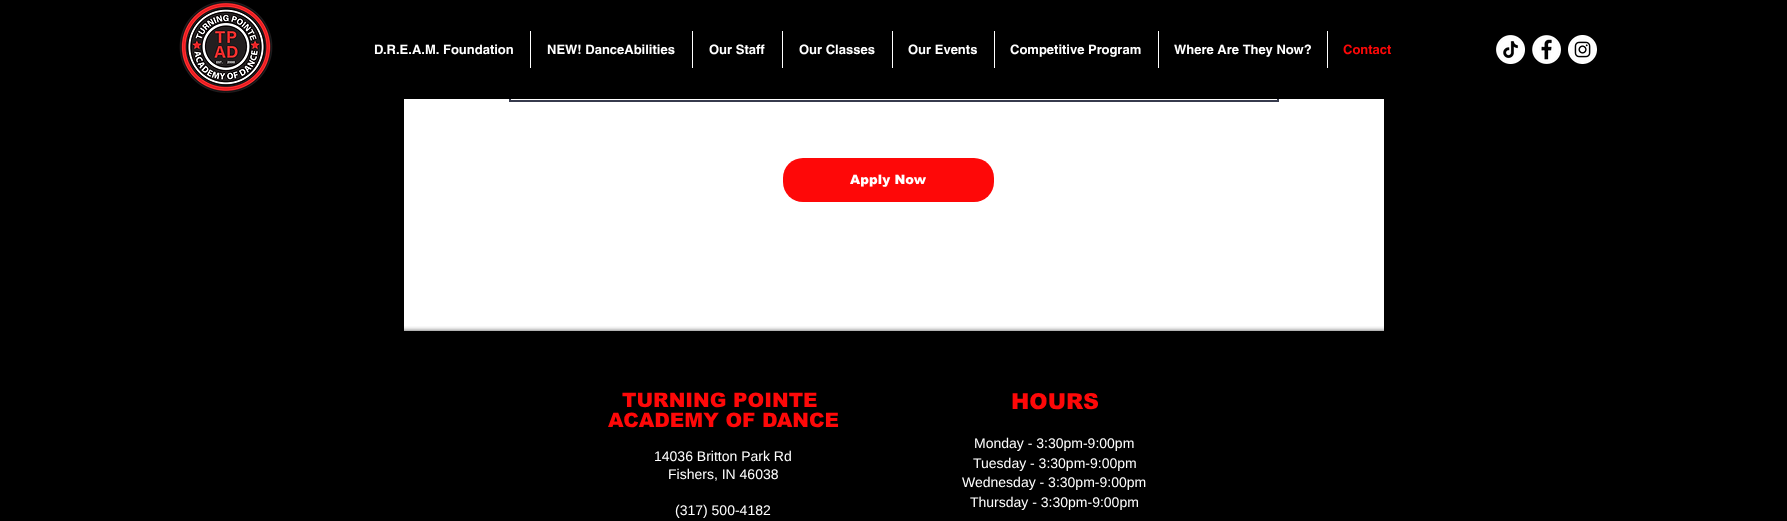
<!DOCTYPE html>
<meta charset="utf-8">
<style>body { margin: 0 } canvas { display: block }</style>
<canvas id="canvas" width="1787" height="521"></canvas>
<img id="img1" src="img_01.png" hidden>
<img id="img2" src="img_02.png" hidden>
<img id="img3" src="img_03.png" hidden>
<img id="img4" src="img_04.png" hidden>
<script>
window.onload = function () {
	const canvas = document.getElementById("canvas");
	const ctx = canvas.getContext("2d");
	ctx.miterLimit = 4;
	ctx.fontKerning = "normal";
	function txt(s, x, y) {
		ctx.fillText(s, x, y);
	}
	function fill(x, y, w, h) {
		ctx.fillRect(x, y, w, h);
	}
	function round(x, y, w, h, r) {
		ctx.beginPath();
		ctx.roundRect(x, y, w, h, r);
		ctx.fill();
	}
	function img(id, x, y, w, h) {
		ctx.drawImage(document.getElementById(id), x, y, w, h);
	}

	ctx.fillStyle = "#000000";
	fill(0, 0, 1787, 521);
	ctx.fillStyle = "#FFFFFF";
	fill(404, 99, 980, 232);
	ctx.strokeStyle = "#373B4D";
	ctx.lineWidth = 2;
	ctx.strokeRect(510, -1, 768, 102);
	ctx.fillStyle = "#000000";
	fill(509, 0, 770, 99);
	img("img1", 179, 1, 94, 92);
	ctx.fillStyle = "#FFFFFF";
	fill(530, 31, 1, 37);
	fill(692, 31, 1, 37);
	fill(782, 31, 1, 37);
	fill(892, 31, 1, 37);
	fill(994, 31, 1, 37);
	fill(1158, 31, 1, 37);
	fill(1327, 31, 1, 37);
	img("img2", 1496, 35, 29, 29);
	img("img3", 1532, 35, 29, 29);
	img("img4", 1568, 35, 29, 29);
	ctx.fillStyle = "#FE0808";
	round(783, 158, 211, 44, 20);
	ctx.save();
	ctx.beginPath();
	ctx.rect(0, 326, 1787, 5);
	ctx.clip();
	ctx.fillStyle = "rgba(0, 0, 0, 0.7)";
	ctx.filter = "blur(2.5px)";
	ctx.beginPath();
	ctx.rect(0, 331, 1787, 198);
	ctx.fill();
	ctx.filter = "none";
	ctx.restore();
	ctx.font = "bold 13px helvetica";
	ctx.fillStyle = "#FFFFFF";
	txt("D.R.E.A.M. Foundation", 374, 54);
	txt("NEW! DanceAbilities", 547, 54);
	txt("Our Staff", 709, 54);
	txt("Our Classes", 799, 54);
	txt("Our Events", 908, 54);
	txt("Competitive Program", 1010, 54);
	txt("Where Are They Now?", 1174, 54);
	ctx.fillStyle = "#FE0808";
	txt("Contact", 1343, 54);
	ctx.font = "900 13px arial";
	ctx.fillStyle = "#FFFFFF";
	txt("Apply Now", 850, 184);
	ctx.font = "900 20px arial";
	ctx.fillStyle = "#FE0808";
	txt("TURNING POINTE", 622, 407);
	txt("ACADEMY OF DANCE", 608, 427);
	ctx.font = "14px Liberation Sans";
	ctx.fillStyle = "#FFFFFF";
	txt("14036 Britton Park Rd", 654, 461);
	txt("Fishers, IN 46038", 668, 479);
	txt("(317) 500-4182", 675, 515);
	ctx.font = "900 22px arial";
	ctx.fillStyle = "#FE0808";
	txt("HOURS", 1011, 409);
	ctx.font = "14px Liberation Sans";
	ctx.fillStyle = "#FFFFFF";
	txt("Monday - 3:30pm-9:00pm", 974, 448);
	txt("Tuesday - 3:30pm-9:00pm", 973, 468);
	txt("Wednesday - 3:30pm-9:00pm", 962, 487);
	txt("Thursday - 3:30pm-9:00pm", 970, 507);
};
</script>
